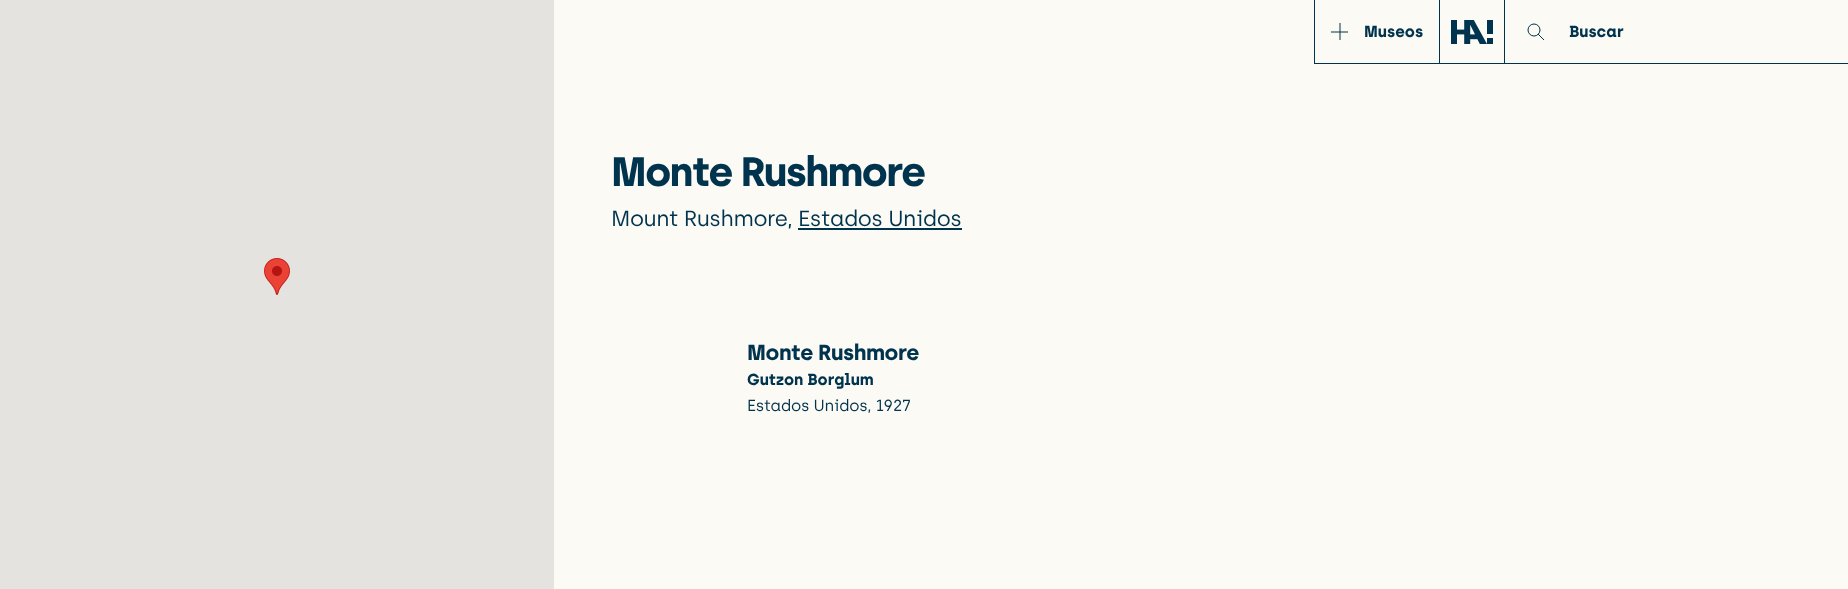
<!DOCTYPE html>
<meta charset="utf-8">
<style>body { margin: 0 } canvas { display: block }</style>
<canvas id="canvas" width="1848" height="589"></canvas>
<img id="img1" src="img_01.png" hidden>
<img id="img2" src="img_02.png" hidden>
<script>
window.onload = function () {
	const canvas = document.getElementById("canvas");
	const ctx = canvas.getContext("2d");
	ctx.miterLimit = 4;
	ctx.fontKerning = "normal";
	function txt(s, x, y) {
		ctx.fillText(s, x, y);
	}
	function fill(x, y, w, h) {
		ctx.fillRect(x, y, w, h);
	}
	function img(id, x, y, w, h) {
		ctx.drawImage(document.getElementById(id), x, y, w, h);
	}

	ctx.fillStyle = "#FBFAF4";
	fill(0, 0, 1848, 589);
	ctx.fillStyle = "#00334D";
	fill(1314, 63, 534, 1);
	fill(1314, 0, 1, 64);
	fill(1439, 0, 1, 63);
	ctx.beginPath();
	ctx.moveTo(1331, 32);
	ctx.lineTo(1348, 32);
	ctx.moveTo(1340, 23);
	ctx.lineTo(1340, 40);
	ctx.strokeStyle = "#00334D";
	ctx.stroke();
	img("img1", 1451, 20, 42, 24);
	ctx.beginPath();
	ctx.arc(1534, 30, 6, 0, Math.PI * 2);
	ctx.stroke();
	ctx.beginPath();
	ctx.moveTo(1538, 34);
	ctx.lineTo(1544, 40);
	ctx.stroke();
	fill(1504, 0, 1, 64);
	ctx.fillStyle = "#E5E3DF";
	fill(0, 0, 554, 589);
	img("img2", 264, 258, 26, 37);
	ctx.fillStyle = "#00334D";
	fill(798, 228, 164, 2);
	ctx.font = "bold 16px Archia";
	txt("Museos", 1364, 37);
	txt("Buscar", 1569, 37);
	ctx.letterSpacing = "-1.6px";
	ctx.font = "bold 41.25px Archia";
	txt("Monte Rushmore", 611, 186);
	ctx.letterSpacing = "-0.45px";
	ctx.font = "21.9px Archia";
	txt("Mount Rushmore, Estados Unidos", 611, 226);
	ctx.font = "bold 21.9px Archia";
	txt("Monte Rushmore", 747, 360);
	ctx.letterSpacing = "0px";
	ctx.font = "bold 16px Archia";
	txt("Gutzon Borglum", 747, 385);
	ctx.letterSpacing = "-0.25px";
	ctx.font = "16px Archia";
	txt("Estados Unidos, 1927", 747, 411);
};
</script>
